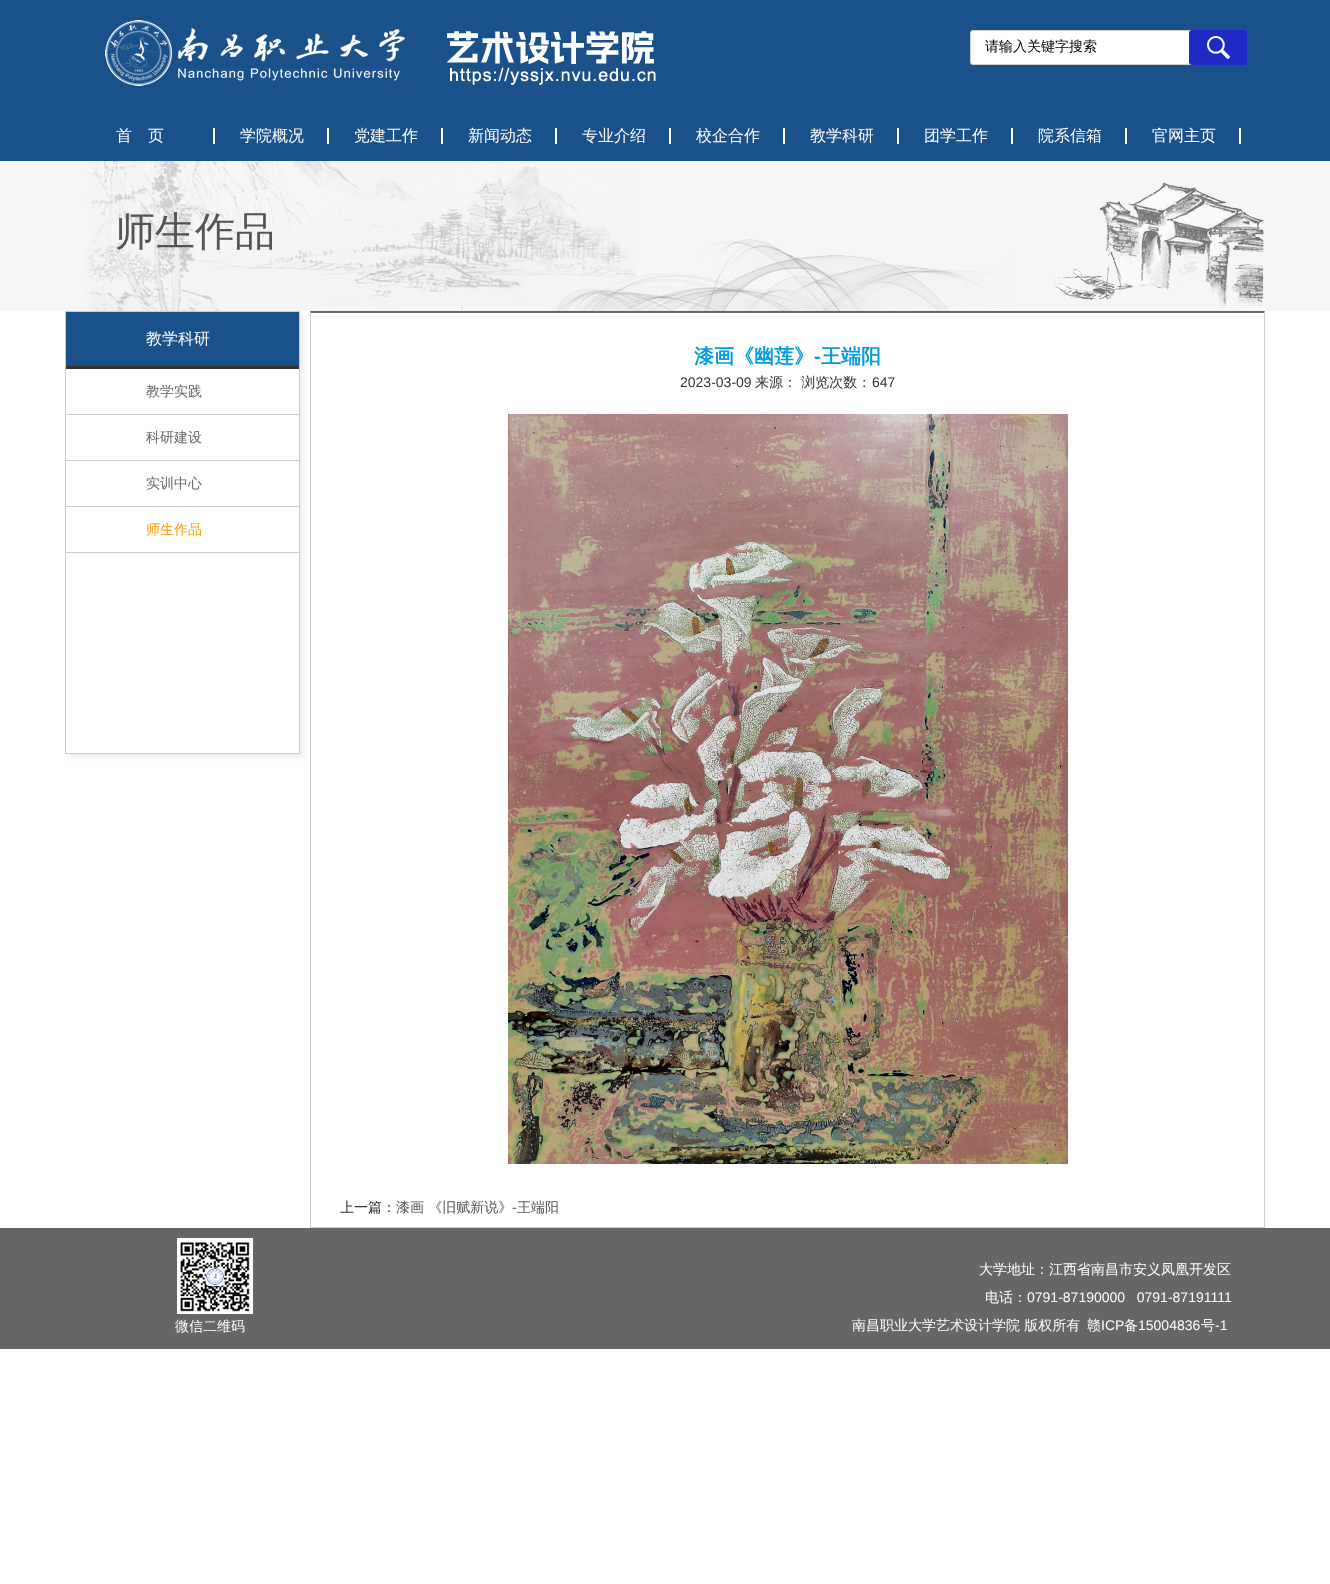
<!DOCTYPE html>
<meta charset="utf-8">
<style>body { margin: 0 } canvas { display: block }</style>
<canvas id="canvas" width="1330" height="1584"></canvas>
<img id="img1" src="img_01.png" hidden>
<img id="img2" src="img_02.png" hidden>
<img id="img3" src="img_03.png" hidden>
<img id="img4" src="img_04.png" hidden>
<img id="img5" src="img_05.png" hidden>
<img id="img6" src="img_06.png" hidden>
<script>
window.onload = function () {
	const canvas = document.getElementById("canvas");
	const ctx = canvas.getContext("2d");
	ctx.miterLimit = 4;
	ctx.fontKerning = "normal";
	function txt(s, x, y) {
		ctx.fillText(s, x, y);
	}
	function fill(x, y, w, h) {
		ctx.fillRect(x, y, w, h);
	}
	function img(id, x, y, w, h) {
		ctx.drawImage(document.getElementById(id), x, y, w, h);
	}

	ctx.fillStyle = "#FFFFFF";
	fill(0, 0, 1330, 1584);
	ctx.fillStyle = "#1A518A";
	fill(0, 0, 1330, 161);
	img("img1", 105, 20, 551, 66);
	img("img2", 970, 30, 219, 35);
	img("img3", 1189, 30, 58, 35);
	ctx.fillStyle = "#FFFFFF";
	fill(213, 128, 2, 16);
	fill(327, 128, 2, 16);
	fill(441, 128, 2, 16);
	fill(555, 128, 2, 16);
	fill(669, 128, 2, 16);
	fill(783, 128, 2, 16);
	fill(897, 128, 2, 16);
	fill(1011, 128, 2, 16);
	fill(1125, 128, 2, 16);
	fill(1239, 128, 2, 16);
	ctx.fillStyle = "#F6F6F6";
	fill(0, 161, 1330, 150);
	img("img4", 83, 161, 1181, 150);
	ctx.save();
	ctx.beginPath();
	ctx.moveTo(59, 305);
	ctx.lineTo(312, 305);
	ctx.lineTo(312, 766);
	ctx.lineTo(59, 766);
	ctx.closePath();
	ctx.moveTo(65, 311);
	ctx.lineTo(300, 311);
	ctx.lineTo(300, 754);
	ctx.lineTo(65, 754);
	ctx.closePath();
	ctx.clip("evenodd");
	ctx.fillStyle = "rgba(190, 190, 190, 0.3)";
	ctx.filter = "blur(2.5px)";
	ctx.beginPath();
	ctx.rect(68, 314, 235, 443);
	ctx.fill();
	ctx.filter = "none";
	ctx.restore();
	ctx.strokeStyle = "#CCCCCC";
	ctx.strokeRect(65.5, 311.5, 234, 442);
	ctx.fillStyle = "#1A518A";
	fill(66, 312, 233, 54);
	ctx.fillStyle = "#333333";
	fill(66, 366, 233, 3);
	ctx.fillStyle = "#CCCCCC";
	fill(66, 414, 233, 1);
	fill(66, 460, 233, 1);
	fill(66, 506, 233, 1);
	fill(66, 552, 233, 1);
	ctx.fillStyle = "#666666";
	ctx.beginPath();
	ctx.moveTo(310, 311);
	ctx.lineTo(1265, 311);
	ctx.lineTo(1264, 313);
	ctx.lineTo(311, 313);
	ctx.closePath();
	ctx.fill();
	ctx.fillStyle = "#CCCCCC";
	ctx.beginPath();
	ctx.moveTo(1265, 311);
	ctx.lineTo(1265, 1228);
	ctx.lineTo(1264, 1227);
	ctx.lineTo(1264, 313);
	ctx.closePath();
	ctx.fill();
	fill(310, 1227, 955, 1);
	ctx.beginPath();
	ctx.moveTo(310, 1228);
	ctx.lineTo(310, 311);
	ctx.lineTo(311, 313);
	ctx.lineTo(311, 1227);
	ctx.closePath();
	ctx.fill();
	img("img5", 508, 414, 560, 750);
	ctx.fillStyle = "#666666";
	fill(0, 1228, 1330, 121);
	img("img6", 177, 1238, 76, 76);
	ctx.font = "500 14px WenQuanYi Zen Hei";
	ctx.fillStyle = "#000000";
	txt("请输入关键字搜索", 985, 51);
	ctx.font = "500 16px WenQuanYi Zen Hei";
	ctx.fillStyle = "#FFFFFF";
	txt("首", 116, 141);
	txt("页", 148, 141);
	txt("学院概况", 240, 141);
	txt("党建工作", 354, 141);
	txt("新闻动态", 468, 141);
	txt("专业介绍", 582, 141);
	txt("校企合作", 696, 141);
	txt("教学科研", 810, 141);
	txt("团学工作", 924, 141);
	txt("院系信箱", 1038, 141);
	txt("官网主页", 1152, 141);
	ctx.font = "500 40px WenQuanYi Zen Hei";
	ctx.fillStyle = "#545454";
	txt("师生作品", 115, 245);
	ctx.font = "500 16px WenQuanYi Zen Hei";
	ctx.fillStyle = "#FFFFFF";
	txt("教学科研", 146, 344);
	ctx.font = "500 14px WenQuanYi Zen Hei";
	ctx.fillStyle = "#666666";
	txt("教学实践", 146, 396);
	txt("科研建设", 146, 442);
	txt("实训中心", 146, 488);
	ctx.fillStyle = "#FF9900";
	txt("师生作品", 146, 534);
	ctx.font = "bold 20px WenQuanYi Zen Hei";
	ctx.fillStyle = "#049CDB";
	txt("漆画《幽莲》", 694, 363);
	ctx.font = "bold 20px Liberation Sans";
	txt("-", 814, 363);
	ctx.font = "bold 20px WenQuanYi Zen Hei";
	txt("王端阳", 821, 363);
	ctx.font = "14px Liberation Sans";
	ctx.fillStyle = "#333333";
	txt("2023-03-09", 680, 387);
	ctx.font = "500 14px WenQuanYi Zen Hei";
	txt("来源： 浏览次数：", 755, 387);
	ctx.font = "14px Liberation Sans";
	txt("647", 872, 387);
	ctx.font = "500 14px WenQuanYi Zen Hei";
	txt("上一篇：", 340, 1212);
	ctx.fillStyle = "#545454";
	txt("漆画 《旧赋新说》", 396, 1212);
	ctx.font = "14px Liberation Sans";
	txt("-", 512, 1212);
	ctx.font = "500 14px WenQuanYi Zen Hei";
	txt("王端阳", 517, 1212);
	ctx.fillStyle = "#FFFFFF";
	txt("微信二维码", 175, 1331);
	txt("大学地址：江西省南昌市安义凤凰开发区", 979, 1274);
	txt("电话：", 985, 1302);
	ctx.font = "14px Liberation Sans";
	txt("0791-87190000   0791-87191111", 1027, 1302);
	ctx.font = "500 14px WenQuanYi Zen Hei";
	txt("南昌职业大学艺术设计学院 版权所有", 852, 1330);
	txt("赣", 1087, 1330);
	ctx.font = "14px Liberation Sans";
	txt("ICP", 1101, 1330);
	ctx.font = "500 14px WenQuanYi Zen Hei";
	txt("备", 1124, 1330);
	ctx.font = "14px Liberation Sans";
	txt("15004836", 1138, 1330);
	ctx.font = "500 14px WenQuanYi Zen Hei";
	txt("号", 1201, 1330);
	ctx.font = "14px Liberation Sans";
	txt("-1", 1215, 1330);
};
</script>
